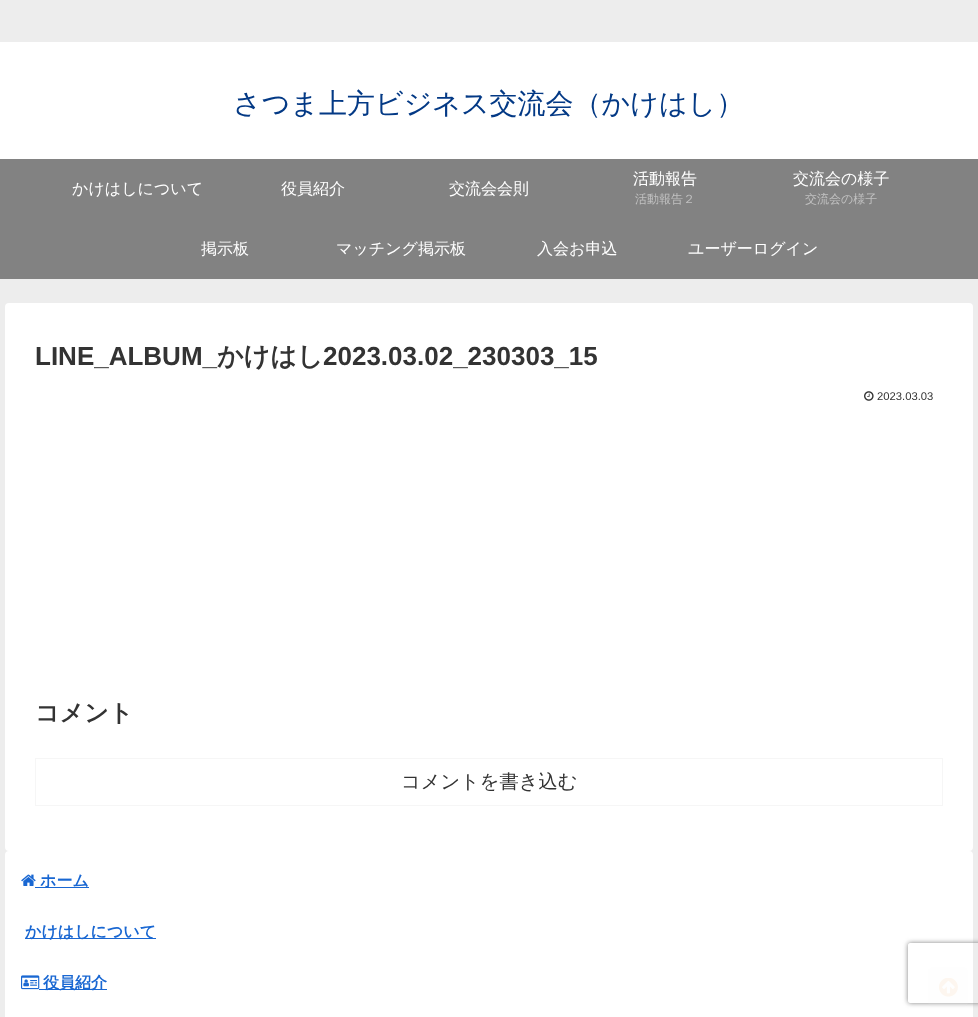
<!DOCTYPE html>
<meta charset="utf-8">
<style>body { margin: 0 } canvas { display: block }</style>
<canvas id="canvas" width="978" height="1017"></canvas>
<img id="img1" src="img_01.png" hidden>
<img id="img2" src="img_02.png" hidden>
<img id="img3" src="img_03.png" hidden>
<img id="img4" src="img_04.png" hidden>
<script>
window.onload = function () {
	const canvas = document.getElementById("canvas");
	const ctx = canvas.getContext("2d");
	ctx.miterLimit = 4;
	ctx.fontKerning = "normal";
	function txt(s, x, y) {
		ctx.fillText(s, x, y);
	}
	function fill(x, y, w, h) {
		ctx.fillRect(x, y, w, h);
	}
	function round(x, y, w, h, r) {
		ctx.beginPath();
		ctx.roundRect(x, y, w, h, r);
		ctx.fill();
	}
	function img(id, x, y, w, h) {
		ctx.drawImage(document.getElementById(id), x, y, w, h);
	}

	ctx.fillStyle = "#EDEDED";
	fill(0, 0, 978, 1017);
	ctx.fillStyle = "#828282";
	fill(0, 159, 978, 120);
	ctx.fillStyle = "#FFFFFF";
	fill(0, 42, 978, 117);
	round(5, 303, 968, 548, 4);
	img("img1", 864, 391, 10, 10);
	ctx.strokeStyle = "#F6F6F6";
	ctx.strokeRect(35.5, 758.5, 907, 47);
	round(5, 851, 968, 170, 4);
	img("img2", 21, 874, 15, 12);
	ctx.fillStyle = "#1967D2";
	fill(35, 887, 54, 1);
	fill(25, 938, 131, 1);
	img("img3", 21, 975, 19, 15);
	fill(39, 989, 68, 1);
	ctx.save();
	ctx.beginPath();
	ctx.moveTo(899, 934);
	ctx.lineTo(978, 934);
	ctx.lineTo(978, 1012);
	ctx.lineTo(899, 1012);
	ctx.closePath();
	ctx.moveTo(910, 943);
	ctx.lineTo(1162, 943);
	ctx.bezierCurveTo(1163, 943, 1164, 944, 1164, 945);
	ctx.lineTo(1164, 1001);
	ctx.bezierCurveTo(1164, 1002, 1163, 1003, 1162, 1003);
	ctx.lineTo(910, 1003);
	ctx.bezierCurveTo(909, 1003, 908, 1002, 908, 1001);
	ctx.lineTo(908, 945);
	ctx.bezierCurveTo(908, 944, 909, 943, 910, 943);
	ctx.closePath();
	ctx.clip("evenodd");
	ctx.fillStyle = "#808080";
	ctx.filter = "blur(2.5px)";
	ctx.beginPath();
	ctx.roundRect(908, 943, 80, 60, 2);
	ctx.fill();
	ctx.filter = "none";
	ctx.restore();
	ctx.fillStyle = "rgba(238, 238, 238, 0.08)";
	round(928, 967, 40, 40, 5);
	img("img4", 939, 978, 19, 19);
	ctx.font = "500 28px WenQuanYi Zen Hei";
	ctx.fillStyle = "#033985";
	txt("さつま上方ビジネス交流会（かけはし）", 233, 113);
	ctx.font = "500 16px WenQuanYi Zen Hei";
	ctx.fillStyle = "#FFFFFF";
	txt("かけはしについて", 72, 194);
	txt("役員紹介", 281, 194);
	txt("交流会会則", 449, 194);
	txt("活動報告", 633, 184);
	ctx.font = "500 12px WenQuanYi Zen Hei";
	ctx.fillStyle = "#C1C1C1";
	txt("活動報告２", 635, 203);
	ctx.font = "500 16px WenQuanYi Zen Hei";
	ctx.fillStyle = "#FFFFFF";
	txt("交流会の様子", 793, 184);
	ctx.font = "500 12px WenQuanYi Zen Hei";
	ctx.fillStyle = "#C1C1C1";
	txt("交流会の様子", 805, 203);
	ctx.font = "500 16px WenQuanYi Zen Hei";
	ctx.fillStyle = "#FFFFFF";
	txt("掲示板", 201, 254);
	txt("マッチング掲示板", 336, 254);
	txt("入会お申込", 537, 254);
	txt("ユーザーログイン", 688, 254);
	ctx.font = "bold 26px Liberation Sans";
	ctx.fillStyle = "#333333";
	txt("LINE_ALBUM_", 35, 365);
	ctx.font = "bold 26px WenQuanYi Zen Hei";
	txt("かけはし", 217, 365);
	ctx.font = "bold 26px Liberation Sans";
	txt("2023.03.02_230303_15", 323, 365);
	ctx.font = "11.25px Liberation Sans";
	txt("2023.03.03", 877, 400);
	ctx.font = "bold 24px WenQuanYi Zen Hei";
	txt("コメント", 35, 721);
	ctx.font = "500 19.25px WenQuanYi Zen Hei";
	txt("コメントを書き込む", 401, 788);
	ctx.font = "bold 16px WenQuanYi Zen Hei";
	ctx.fillStyle = "#1967D2";
	txt("ホーム", 40, 886);
	txt("かけはしについて", 25, 937);
	txt("役員紹介", 43, 988);
};
</script>
